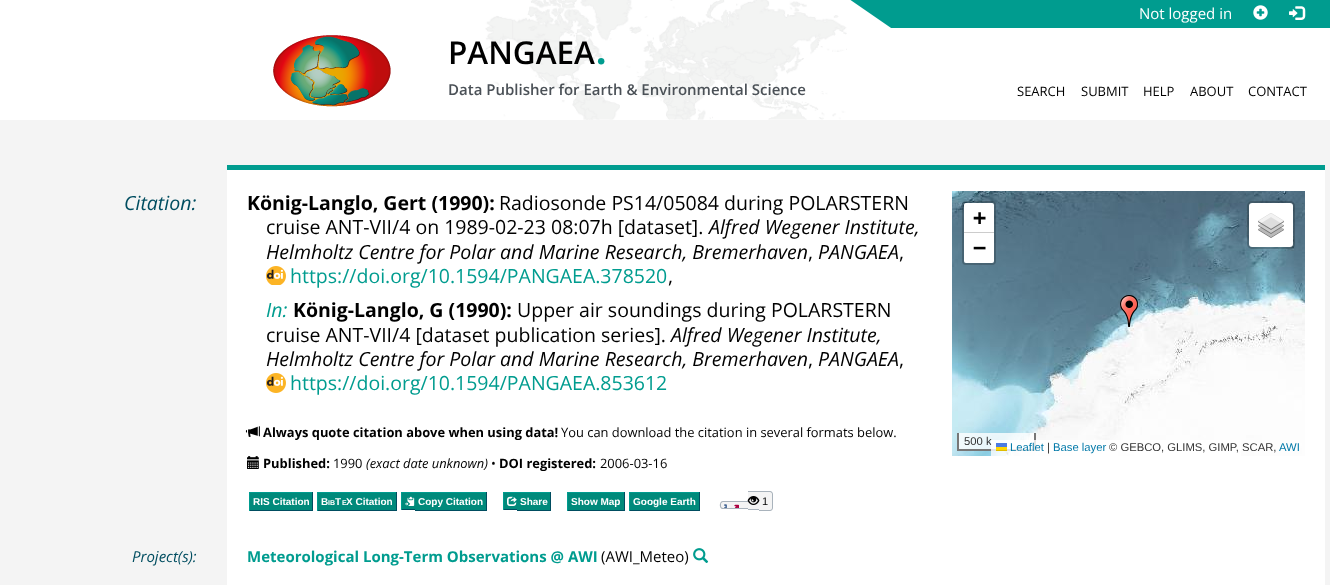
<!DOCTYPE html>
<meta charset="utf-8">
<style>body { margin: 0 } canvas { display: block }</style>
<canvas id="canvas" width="1330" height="585"></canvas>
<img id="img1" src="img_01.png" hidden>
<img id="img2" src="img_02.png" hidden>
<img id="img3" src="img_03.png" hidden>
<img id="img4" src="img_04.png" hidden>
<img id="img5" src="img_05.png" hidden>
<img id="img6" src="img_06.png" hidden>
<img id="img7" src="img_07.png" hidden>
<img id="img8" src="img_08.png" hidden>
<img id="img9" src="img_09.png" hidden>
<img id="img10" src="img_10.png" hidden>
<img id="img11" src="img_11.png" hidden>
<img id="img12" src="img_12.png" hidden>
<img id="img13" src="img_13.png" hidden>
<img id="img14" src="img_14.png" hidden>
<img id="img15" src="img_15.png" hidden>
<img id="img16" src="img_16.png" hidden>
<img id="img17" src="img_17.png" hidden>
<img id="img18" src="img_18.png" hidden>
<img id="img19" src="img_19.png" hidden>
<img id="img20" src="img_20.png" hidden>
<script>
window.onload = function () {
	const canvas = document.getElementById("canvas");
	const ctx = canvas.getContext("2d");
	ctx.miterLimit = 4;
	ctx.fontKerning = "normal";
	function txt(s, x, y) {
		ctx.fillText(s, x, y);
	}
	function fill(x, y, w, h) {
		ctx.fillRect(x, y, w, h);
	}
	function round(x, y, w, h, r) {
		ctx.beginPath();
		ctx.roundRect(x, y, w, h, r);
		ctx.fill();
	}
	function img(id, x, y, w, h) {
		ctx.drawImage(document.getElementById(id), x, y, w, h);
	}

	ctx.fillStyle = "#F4F4F4";
	fill(0, 0, 1330, 585);
	ctx.fillStyle = "#FFFFFF";
	fill(0, 0, 1330, 120);
	img("img1", 485, 0, 362, 120);
	img("img2", 850, 0, 480, 28);
	img("img3", 1253, 5, 15, 15);
	img("img4", 1289, 6, 17, 14);
	img("img5", 273, 35, 118, 72);
	fill(227, 170, 1098, 415);
	ctx.fillStyle = "#009C8F";
	fill(227, 165, 1098, 5);
	img("img6", 266, 266, 20, 19);
	img("img7", 266, 373, 20, 20);
	img("img8", 952, 191, 246, 60);
	img("img9", 1198, 191, 107, 60);
	img("img10", 952, 251, 246, 205);
	img("img11", 1198, 251, 107, 205);
	img("img12", 1120, 295, 18, 32);
	ctx.beginPath();
	ctx.roundRect(963, 202, 32, 62, 3);
	ctx.strokeStyle = "rgba(0, 0, 0, 0.2)";
	ctx.lineWidth = 2;
	ctx.stroke();
	ctx.fillStyle = "#FFFFFF";
	ctx.beginPath();
	ctx.roundRect(964, 203, 30, 30, [2, 2, 0, 0]);
	ctx.fill();
	ctx.fillStyle = "#CCCCCC";
	fill(964, 232, 30, 1);
	ctx.fillStyle = "#FFFFFF";
	ctx.beginPath();
	ctx.roundRect(964, 233, 30, 30, [0, 0, 2, 2]);
	ctx.fill();
	round(1249, 203, 44, 44, 3);
	ctx.beginPath();
	ctx.roundRect(1248, 202, 46, 46, 4);
	ctx.stroke();
	img("img13", 1258, 213, 26, 25);
	ctx.fillStyle = "rgba(255, 255, 255, 0.8)";
	fill(959, 433, 75, 16);
	ctx.fillStyle = "#777777";
	fill(1034, 433, 2, 18);
	fill(957, 449, 79, 2);
	fill(957, 433, 2, 18);
	img("img14", 245, 426, 15, 11);
	img("img15", 247, 456, 12, 13);
	ctx.fillStyle = "#008A7B";
	fill(250, 493, 62, 17);
	ctx.fillStyle = "#009C8F";
	fill(249, 492, 64, 1);
	ctx.fillStyle = "#004D60";
	fill(312, 492, 1, 19);
	fill(249, 510, 64, 1);
	ctx.fillStyle = "#009C8F";
	fill(249, 492, 1, 19);
	ctx.fillStyle = "#008A7B";
	fill(318, 493, 78, 17);
	ctx.fillStyle = "#009C8F";
	fill(317, 492, 80, 1);
	ctx.fillStyle = "#004D60";
	fill(317, 510, 36, 1);
	ctx.fillStyle = "#009C8F";
	fill(317, 492, 1, 19);
	ctx.fillStyle = "#004D60";
	fill(396, 492, 1, 19);
	fill(353, 510, 44, 1);
	ctx.fillStyle = "#008A7B";
	fill(402, 493, 13, 16);
	ctx.fillStyle = "#009C8F";
	fill(401, 492, 86, 1);
	ctx.fillStyle = "#004D60";
	fill(401, 509, 14, 1);
	ctx.fillStyle = "#009C8F";
	fill(401, 492, 1, 18);
	ctx.fillStyle = "#008A7B";
	fill(415, 493, 71, 17);
	ctx.fillStyle = "#004D60";
	fill(486, 492, 1, 19);
	fill(415, 510, 72, 1);
	img("img16", 405, 496, 10, 10);
	ctx.fillStyle = "#008A7B";
	fill(504, 493, 13, 16);
	ctx.fillStyle = "#009C8F";
	fill(503, 492, 48, 1);
	ctx.fillStyle = "#004D60";
	fill(503, 509, 14, 1);
	ctx.fillStyle = "#009C8F";
	fill(503, 492, 1, 18);
	ctx.fillStyle = "#008A7B";
	fill(517, 493, 33, 17);
	ctx.fillStyle = "#004D60";
	fill(550, 492, 1, 19);
	fill(517, 510, 34, 1);
	img("img17", 507, 496, 10, 10);
	ctx.fillStyle = "#008A7B";
	fill(568, 493, 56, 17);
	ctx.fillStyle = "#009C8F";
	fill(567, 492, 58, 1);
	ctx.fillStyle = "#004D60";
	fill(624, 492, 1, 19);
	fill(567, 510, 58, 1);
	ctx.fillStyle = "#009C8F";
	fill(567, 492, 1, 19);
	ctx.fillStyle = "#008A7B";
	fill(630, 493, 69, 17);
	ctx.fillStyle = "#009C8F";
	fill(629, 492, 71, 1);
	ctx.fillStyle = "#004D60";
	fill(699, 492, 1, 19);
	fill(629, 510, 71, 1);
	ctx.fillStyle = "#009C8F";
	fill(629, 492, 1, 19);
	ctx.fillStyle = "#F4F4F4";
	ctx.beginPath();
	ctx.roundRect(720, 501, 28, 8, [3, 0, 0, 3]);
	ctx.fill();
	img("img18", 724, 504, 15, 4);
	ctx.fillStyle = "#A9B3BC";
	ctx.beginPath();
	ctx.moveTo(723, 501);
	ctx.lineTo(748, 501);
	ctx.lineTo(748, 509);
	ctx.lineTo(722, 509);
	ctx.bezierCurveTo(718.5, 507.5, 719.5, 501, 723, 501);
	ctx.closePath();
	ctx.moveTo(723, 502);
	ctx.lineTo(748, 502);
	ctx.lineTo(748, 508);
	ctx.lineTo(723, 508);
	ctx.bezierCurveTo(722, 508, 721, 507, 721, 506);
	ctx.lineTo(721, 504);
	ctx.bezierCurveTo(721, 503, 722, 502, 723, 502);
	ctx.closePath();
	ctx.fill("evenodd");
	ctx.fillStyle = "#F4F4F4";
	fill(748, 492, 11, 17);
	ctx.fillStyle = "#A9B3BC";
	fill(748, 491, 11, 1);
	fill(748, 509, 11, 1);
	ctx.fillStyle = "#F4F4F4";
	ctx.beginPath();
	ctx.roundRect(759, 491, 14, 20, [0, 3, 3, 0]);
	ctx.fill();
	ctx.fillStyle = "#A9B3BC";
	ctx.beginPath();
	ctx.moveTo(759, 491);
	ctx.lineTo(770, 491);
	ctx.bezierCurveTo(771.5, 491, 773, 492.5, 773, 494);
	ctx.lineTo(773, 508);
	ctx.bezierCurveTo(773, 509.5, 771.5, 511, 770, 511);
	ctx.lineTo(759, 511);
	ctx.closePath();
	ctx.moveTo(759, 492);
	ctx.lineTo(770, 492);
	ctx.bezierCurveTo(771, 492, 772, 493, 772, 494);
	ctx.lineTo(772, 508);
	ctx.bezierCurveTo(772, 509, 771, 510, 770, 510);
	ctx.lineTo(759, 510);
	ctx.closePath();
	ctx.fill("evenodd");
	img("img19", 747, 496, 13, 9);
	img("img20", 693, 548, 16, 15);
	ctx.font = "15px Open Sans";
	ctx.fillStyle = "#FFFFFF";
	txt("Not logged in", 1139, 19);
	ctx.font = "600 31.5px Open Sans";
	ctx.fillStyle = "#000000";
	txt("PANGAEA", 448, 64);
	ctx.font = "600 45px Open Sans";
	ctx.fillStyle = "#009C8F";
	txt(".", 595, 64);
	ctx.font = "600 15px Open Sans";
	ctx.fillStyle = "#4B5157";
	txt("Data Publisher for Earth & Environmental Science", 448, 95);
	ctx.font = "13px Open Sans";
	ctx.fillStyle = "#000000";
	txt("SEARCH", 1017, 96);
	txt("SUBMIT", 1081, 96);
	txt("HELP", 1143, 96);
	txt("ABOUT", 1190, 96);
	txt("CONTACT", 1248, 96);
	ctx.font = "italic 19.5px Open Sans";
	ctx.fillStyle = "#004D60";
	txt("Citation:", 124, 210);
	ctx.font = "bold 19.5px Open Sans";
	ctx.fillStyle = "#000000";
	txt("König-Langlo, Gert (1990):", 247, 210);
	ctx.font = "19.5px Open Sans";
	txt("Radiosonde PS14/05084 during POLARSTERN", 499, 210);
	txt("cruise ANT-VII/4 on 1989-02-23 08:07h [dataset].", 266, 234);
	ctx.font = "italic 19.5px Open Sans";
	txt("Alfred Wegener Institute,", 709, 234);
	txt("Helmholtz Centre for Polar and Marine Research, Bremerhaven", 266, 259);
	ctx.font = "19.5px Open Sans";
	txt(",", 808, 259);
	ctx.font = "italic 19.5px Open Sans";
	txt("PANGAEA", 818, 259);
	ctx.font = "19.5px Open Sans";
	txt(",", 899, 259);
	ctx.fillStyle = "#009C8F";
	txt("https://doi.org/10.1594/PANGAEA.378520", 290, 283);
	ctx.fillStyle = "#000000";
	txt(",", 668, 283);
	ctx.font = "italic 19.5px Open Sans";
	ctx.fillStyle = "#009C8F";
	txt("In:", 266, 317);
	ctx.font = "bold 19.5px Open Sans";
	ctx.fillStyle = "#000000";
	txt("König-Langlo, G (1990):", 293, 317);
	ctx.font = "19.5px Open Sans";
	txt("Upper air soundings during POLARSTERN", 517, 317);
	txt("cruise ANT-VII/4 [dataset publication series].", 266, 342);
	ctx.font = "italic 19.5px Open Sans";
	txt("Alfred Wegener Institute,", 671, 342);
	txt("Helmholtz Centre for Polar and Marine Research, Bremerhaven", 266, 366);
	ctx.font = "19.5px Open Sans";
	txt(",", 808, 366);
	ctx.font = "italic 19.5px Open Sans";
	txt("PANGAEA", 818, 366);
	ctx.font = "19.5px Open Sans";
	txt(",", 899, 366);
	ctx.fillStyle = "#009C8F";
	txt("https://doi.org/10.1594/PANGAEA.853612", 290, 390);
	ctx.font = "bold 22px DejaVu Sans Mono";
	ctx.fillStyle = "#000000";
	txt("+", 973, 225);
	txt("−", 973, 255);
	ctx.font = "11.25px Liberation Sans";
	ctx.fillStyle = "#333333";
	txt("500 k", 964, 445);
	ctx.fillStyle = "rgba(255, 255, 255, 0.8)";
	fill(991, 440, 250, 16);
	ctx.fillStyle = "#0078A8";
	txt("Leaflet", 1010, 451);
	ctx.fillStyle = "#4C7BE1";
	fill(996, 443, 11, 4);
	ctx.fillStyle = "#FFD500";
	fill(996, 447, 11, 3);
	ctx.fillStyle = "#E0BC00";
	fill(996, 450, 11, 1);
	ctx.fillStyle = "#333333";
	txt("|", 1047, 451);
	ctx.fillStyle = "#0078A8";
	txt("Base layer", 1053, 451);
	ctx.fillStyle = "#333333";
	txt("© GEBCO, GLIMS, GIMP, SCAR,", 1109, 451);
	ctx.fillStyle = "#0078A8";
	txt("AWI", 1279, 451);
	ctx.font = "bold 12.9px Open Sans";
	ctx.fillStyle = "#000000";
	txt("Always quote citation above when using data!", 263, 437);
	ctx.font = "12.9px Open Sans";
	txt("You can download the citation in several formats below.", 561, 437);
	ctx.font = "bold 12.9px Open Sans";
	txt("Published:", 263, 468);
	ctx.font = "12.9px Open Sans";
	txt("1990", 333, 468);
	ctx.font = "italic 12.9px Open Sans";
	txt("(exact date unknown)", 366, 468);
	ctx.font = "12.9px Open Sans";
	txt("•", 491, 468);
	ctx.font = "bold 12.9px Open Sans";
	txt("DOI registered:", 499, 468);
	ctx.font = "12.9px Open Sans";
	txt("2006-03-16", 600, 468);
	ctx.font = "bold 10px Liberation Sans";
	ctx.fillStyle = "#FFFFFF";
	txt("RIS Citation", 253, 505);
	txt("B", 321, 505);
	ctx.font = "bold 7px Liberation Sans";
	txt("IB", 328, 505);
	ctx.font = "bold 10px Liberation Sans";
	txt("T", 335, 505);
	ctx.font = "bold 7px Liberation Sans";
	txt("E", 342, 505);
	ctx.font = "bold 10px Liberation Sans";
	txt("X Citation", 346, 505);
	txt("Copy Citation", 418, 505);
	txt("Share", 520, 505);
	txt("Show Map", 571, 505);
	txt("Google Earth", 633, 505);
	ctx.font = "11px Liberation Sans";
	ctx.fillStyle = "#000000";
	txt("1", 762, 505);
	ctx.font = "italic 15px Open Sans";
	ctx.fillStyle = "#004D60";
	txt("Project(s):", 132, 562);
	ctx.font = "bold 15px Open Sans";
	ctx.fillStyle = "#009C8F";
	txt("Meteorological Long-Term Observations @ AWI", 247, 562);
	ctx.font = "15px Open Sans";
	ctx.fillStyle = "#000000";
	txt("(AWI_Meteo)", 601, 562);
};
</script>
